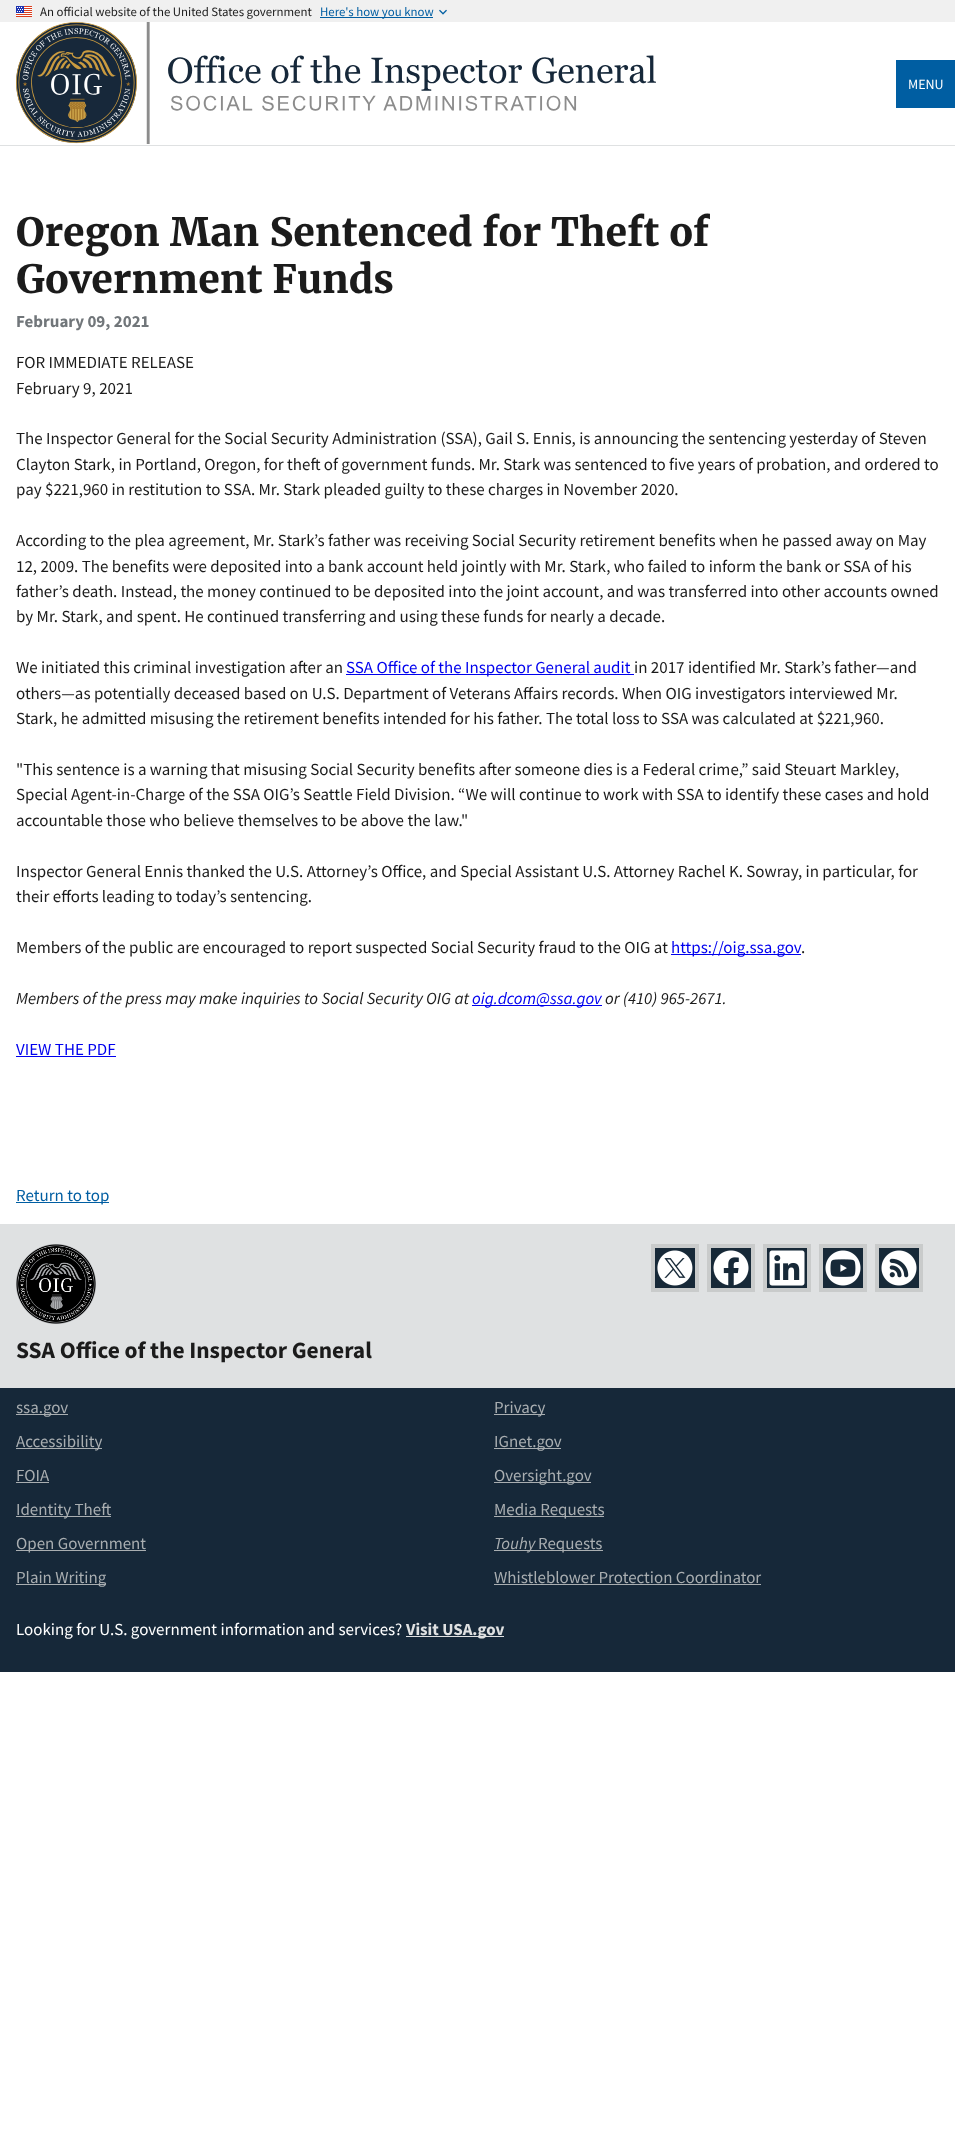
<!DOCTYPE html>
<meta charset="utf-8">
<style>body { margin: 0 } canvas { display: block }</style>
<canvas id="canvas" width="955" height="2156"></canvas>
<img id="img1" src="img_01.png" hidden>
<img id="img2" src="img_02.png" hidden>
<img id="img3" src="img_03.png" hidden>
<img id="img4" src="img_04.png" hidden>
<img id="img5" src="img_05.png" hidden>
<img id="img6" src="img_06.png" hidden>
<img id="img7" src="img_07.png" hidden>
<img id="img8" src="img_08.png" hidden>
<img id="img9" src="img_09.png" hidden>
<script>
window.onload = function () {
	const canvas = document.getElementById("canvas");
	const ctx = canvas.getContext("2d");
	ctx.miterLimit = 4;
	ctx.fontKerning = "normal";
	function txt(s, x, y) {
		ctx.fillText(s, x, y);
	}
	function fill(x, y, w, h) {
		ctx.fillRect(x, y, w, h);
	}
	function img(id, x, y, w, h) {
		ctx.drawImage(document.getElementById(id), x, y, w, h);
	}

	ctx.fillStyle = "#FFFFFF";
	fill(0, 0, 955, 2156);
	ctx.fillStyle = "#F0F0F0";
	fill(0, 0, 955, 22);
	img("img1", 16, 6, 16, 11);
	ctx.fillStyle = "#005EA2";
	fill(320, 17, 113, 1);
	img("img2", 439, 9, 8, 6);
	ctx.fillStyle = "#DFE1E2";
	fill(0, 145, 955, 1);
	img("img3", 16, 22, 640, 122);
	ctx.fillStyle = "#005EA2";
	fill(896, 60, 59, 48);
	ctx.fillStyle = "#0000EE";
	fill(346, 674, 288, 1);
	fill(671, 954, 130, 1);
	fill(472, 1005, 130, 1);
	fill(16, 1056, 100, 1);
	ctx.fillStyle = "#005EA2";
	fill(16, 1202, 93, 1);
	ctx.fillStyle = "#DFE1E2";
	fill(0, 1224, 955, 164);
	ctx.fillStyle = "#C9CBCB";
	fill(651, 1244, 48, 48);
	img("img4", 655, 1248, 40, 40);
	fill(707, 1244, 48, 48);
	img("img5", 711, 1248, 40, 40);
	fill(763, 1244, 48, 48);
	img("img6", 767, 1248, 40, 40);
	fill(819, 1244, 48, 48);
	img("img7", 823, 1248, 40, 40);
	fill(875, 1244, 48, 48);
	img("img8", 879, 1248, 40, 40);
	img("img9", 16, 1244, 80, 80);
	ctx.fillStyle = "#162839";
	fill(0, 1388, 955, 284);
	ctx.fillStyle = "#A9AEB1";
	fill(16, 1414, 52, 1);
	fill(494, 1414, 51, 1);
	fill(16, 1448, 86, 1);
	fill(494, 1448, 67, 1);
	fill(16, 1482, 33, 1);
	fill(494, 1482, 97, 1);
	fill(16, 1516, 95, 1);
	fill(494, 1516, 110, 1);
	fill(16, 1550, 130, 1);
	fill(494, 1550, 41, 1);
	fill(535, 1550, 68, 1);
	fill(16, 1584, 90, 1);
	fill(494, 1584, 267, 1);
	ctx.fillStyle = "#DFE1E2";
	fill(406, 1636, 98, 1);
	ctx.font = "12.8px Source Sans Pro";
	ctx.fillStyle = "#1B1B1B";
	txt("An official website of the United States government", 40, 16);
	ctx.fillStyle = "#005EA2";
	txt("Here's how you know", 320, 16);
	ctx.font = "14px Source Sans Pro";
	ctx.fillStyle = "#FFFFFF";
	txt("MENU", 908, 89);
	ctx.font = "bold 39px Merriweather";
	ctx.fillStyle = "#1B1B1B";
	txt("Oregon Man Sentenced for Theft of", 16, 246);
	txt("Government Funds", 16, 293);
	ctx.font = "bold 16.95px Source Sans Pro";
	ctx.fillStyle = "#71767A";
	txt("February 09, 2021", 16, 327);
	ctx.font = "16.95px Source Sans Pro";
	ctx.fillStyle = "#1B1B1B";
	txt("FOR IMMEDIATE RELEASE", 16, 368);
	txt("February 9, 2021", 16, 394);
	txt("The Inspector General for the Social Security Administration (SSA), Gail S. Ennis, is announcing the sentencing yesterday of Steven", 16, 444);
	txt("Clayton Stark, in Portland, Oregon, for theft of government funds. Mr. Stark was sentenced to five years of probation, and ordered to", 16, 470);
	txt("pay $221,960 in restitution to SSA. Mr. Stark pleaded guilty to these charges in November 2020.", 16, 495);
	txt("According to the plea agreement, Mr. Stark’s father was receiving Social Security retirement benefits when he passed away on May", 16, 546);
	txt("12, 2009. The benefits were deposited into a bank account held jointly with Mr. Stark, who failed to inform the bank or SSA of his", 16, 572);
	txt("father’s death. Instead, the money continued to be deposited into the joint account, and was transferred into other accounts owned", 16, 597);
	txt("by Mr. Stark, and spent. He continued transferring and using these funds for nearly a decade.", 16, 622);
	txt("We initiated this criminal investigation after an", 16, 673);
	ctx.fillStyle = "#0000EE";
	txt("SSA Office of the Inspector General audit", 346, 673);
	ctx.fillStyle = "#1B1B1B";
	txt("in 2017 identified Mr. Stark’s father—and", 634, 673);
	txt("others—as potentially deceased based on U.S. Department of Veterans Affairs records. When OIG investigators interviewed Mr.", 16, 699);
	txt("Stark, he admitted misusing the retirement benefits intended for his father. The total loss to SSA was calculated at $221,960.", 16, 724);
	txt("\"This sentence is a warning that misusing Social Security benefits after someone dies is a Federal crime,” said Steuart Markley,", 16, 775);
	txt("Special Agent-in-Charge of the SSA OIG’s Seattle Field Division. “We will continue to work with SSA to identify these cases and hold", 16, 800);
	txt("accountable those who believe themselves to be above the law.\"", 16, 826);
	txt("Inspector General Ennis thanked the U.S. Attorney’s Office, and Special Assistant U.S. Attorney Rachel K. Sowray, in particular, for", 16, 877);
	txt("their efforts leading to today’s sentencing.", 16, 902);
	txt("Members of the public are encouraged to report suspected Social Security fraud to the OIG at", 16, 953);
	ctx.fillStyle = "#0000EE";
	txt("https://oig.ssa.gov", 671, 953);
	ctx.fillStyle = "#1B1B1B";
	txt(".", 801, 953);
	ctx.font = "italic 16.95px Source Sans Pro";
	txt("Members of the press may make inquiries to Social Security OIG at", 16, 1004);
	ctx.fillStyle = "#0000EE";
	txt("oig.dcom@ssa.gov", 472, 1004);
	ctx.fillStyle = "#1B1B1B";
	txt("or (410) 965-2671.", 605, 1004);
	ctx.font = "16.95px Source Sans Pro";
	ctx.fillStyle = "#0000EE";
	txt("VIEW THE PDF", 16, 1055);
	ctx.fillStyle = "#005EA2";
	txt("Return to top", 16, 1201);
	ctx.font = "bold 23.4px Source Sans Pro";
	ctx.fillStyle = "#1B1B1B";
	txt("SSA Office of the Inspector General", 16, 1358);
	ctx.font = "16.95px Source Sans Pro";
	ctx.fillStyle = "#A9AEB1";
	txt("ssa.gov", 16, 1413);
	txt("Privacy", 494, 1413);
	txt("Accessibility", 16, 1447);
	txt("IGnet.gov", 494, 1447);
	txt("FOIA", 16, 1481);
	txt("Oversight.gov", 494, 1481);
	txt("Identity Theft", 16, 1515);
	txt("Media Requests", 494, 1515);
	txt("Open Government", 16, 1549);
	ctx.font = "italic 16.95px Source Sans Pro";
	txt("Touhy", 494, 1549);
	ctx.font = "16.95px Source Sans Pro";
	txt("Requests", 538, 1549);
	txt("Plain Writing", 16, 1583);
	txt("Whistleblower Protection Coordinator", 494, 1583);
	ctx.fillStyle = "#FFFFFF";
	txt("Looking for U.S. government information and services?", 16, 1635);
	ctx.font = "bold 16.95px Source Sans Pro";
	ctx.fillStyle = "#DFE1E2";
	txt("Visit USA.gov", 406, 1635);
};
</script>
